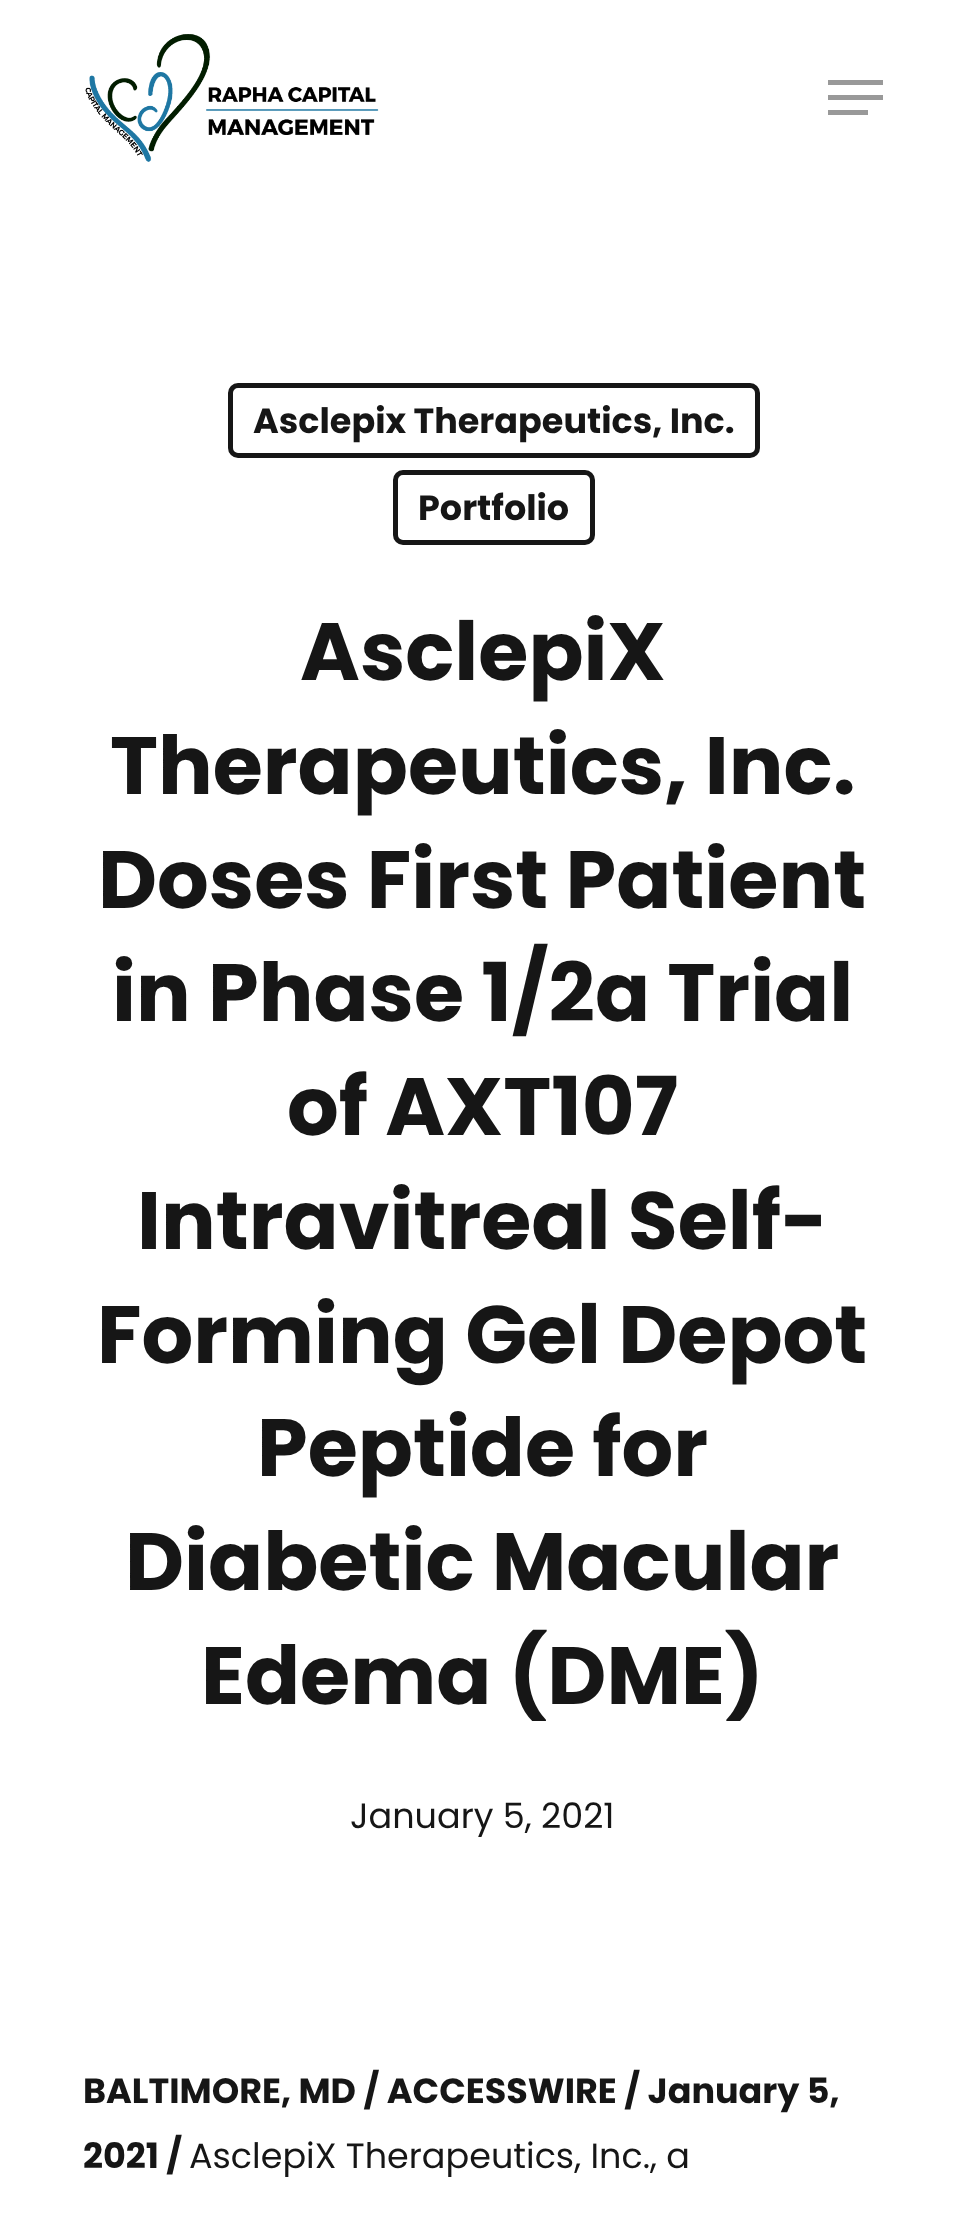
<!DOCTYPE html>
<meta charset="utf-8">
<style>body { margin: 0 } canvas { display: block }</style>
<canvas id="canvas" width="964" height="2223"></canvas>
<img id="img1" src="img_01.png" hidden>
<script>
window.onload = function () {
	const canvas = document.getElementById("canvas");
	const ctx = canvas.getContext("2d");
	ctx.miterLimit = 4;
	ctx.fontKerning = "normal";
	function txt(s, x, y) {
		ctx.fillText(s, x, y);
	}
	function fill(x, y, w, h) {
		ctx.fillRect(x, y, w, h);
	}
	function img(id, x, y, w, h) {
		ctx.drawImage(document.getElementById(id), x, y, w, h);
	}

	ctx.fillStyle = "#FFFFFF";
	fill(0, 0, 964, 2223);
	img("img1", 85, 34, 294, 128);
	ctx.fillStyle = "#999999";
	fill(828, 80, 55, 5);
	fill(828, 110, 40, 5);
	fill(828, 95, 55, 5);
	ctx.beginPath();
	ctx.roundRect(230.5, 385.5, 527, 70, 7.5);
	ctx.strokeStyle = "#161616";
	ctx.lineWidth = 5;
	ctx.stroke();
	ctx.beginPath();
	ctx.roundRect(395.5, 472.5, 197, 70, 7.5);
	ctx.stroke();
	ctx.font = "bold 35px Poppins";
	ctx.fillStyle = "#161616";
	txt("Asclepix Therapeutics, Inc.", 253, 433);
	txt("Portfolio", 418, 520);
	ctx.font = "bold 81.25px Poppins";
	txt("AsclepiX", 300, 680);
	txt("Therapeutics, Inc.", 110, 794);
	txt("Doses First Patient", 98, 908);
	txt("in Phase 1/2a Trial", 112, 1021);
	txt("of AXT107", 287, 1135);
	txt("Intravitreal Self-", 137, 1249);
	txt("Forming Gel Depot", 97, 1363);
	txt("Peptide for", 257, 1476);
	txt("Diabetic Macular", 125, 1590);
	txt("Edema (DME)", 201, 1704);
	ctx.font = "35px Poppins";
	txt("January 5, 2021", 350, 1828);
	ctx.font = "bold 35px Poppins";
	txt("BALTIMORE, MD / ACCESSWIRE / January 5,", 83, 2103);
	txt("2021 /", 83, 2168);
	ctx.font = "35px Poppins";
	txt("AsclepiX Therapeutics, Inc., a", 189, 2168);
};
</script>
